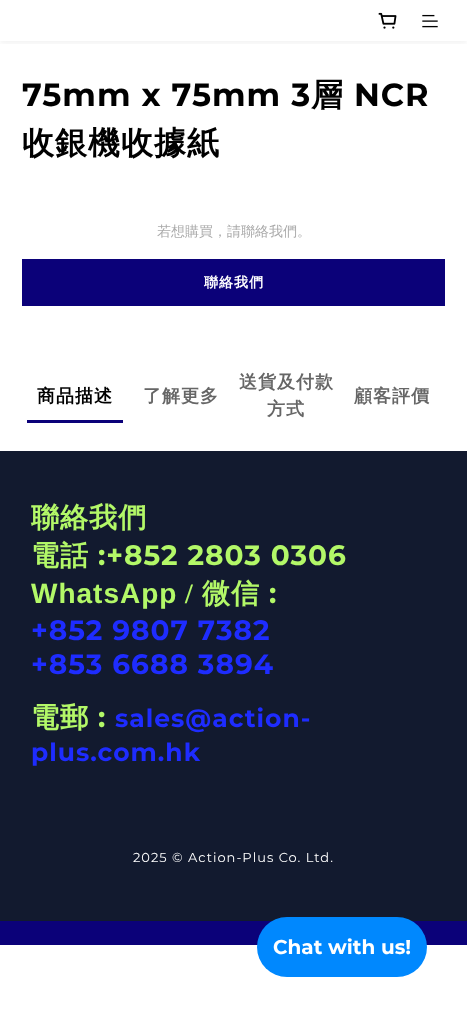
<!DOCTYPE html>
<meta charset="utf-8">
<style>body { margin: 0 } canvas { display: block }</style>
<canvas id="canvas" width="467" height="1033"></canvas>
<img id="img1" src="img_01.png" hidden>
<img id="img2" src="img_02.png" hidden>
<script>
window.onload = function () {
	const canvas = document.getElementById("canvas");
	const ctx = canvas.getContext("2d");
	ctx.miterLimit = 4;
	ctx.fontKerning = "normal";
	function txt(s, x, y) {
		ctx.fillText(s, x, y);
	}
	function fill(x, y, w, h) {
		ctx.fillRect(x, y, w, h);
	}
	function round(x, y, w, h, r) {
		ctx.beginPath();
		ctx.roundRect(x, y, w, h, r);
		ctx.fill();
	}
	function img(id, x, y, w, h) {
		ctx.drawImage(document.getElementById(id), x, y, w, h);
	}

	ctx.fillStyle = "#FFFFFF";
	fill(0, 0, 467, 1033);
	ctx.save();
	ctx.beginPath();
	ctx.rect(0, 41, 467, 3);
	ctx.clip();
	ctx.fillStyle = "rgba(0, 0, 0, 0.06)";
	ctx.filter = "blur(3px)";
	ctx.beginPath();
	ctx.rect(0, 2, 467, 41);
	ctx.fill();
	ctx.filter = "none";
	ctx.restore();
	img("img1", 378, 12, 19, 17);
	img("img2", 422, 14, 16, 14);
	ctx.fillStyle = "#0B0179";
	fill(22, 259, 423, 47);
	fill(27, 420, 96, 3);
	ctx.fillStyle = "#121A2F";
	fill(0, 451, 467, 470);
	ctx.fillStyle = "#0B0179";
	fill(0, 921, 467, 24);
	ctx.fillStyle = "#0088FE";
	round(257, 917, 170, 60, 30);
	ctx.letterSpacing = "1px";
	ctx.font = "bold 32px Montserrat";
	ctx.fillStyle = "#000000";
	txt("75mm x 75mm 3", 22, 106);
	ctx.font = "bold 32px WenQuanYi Zen Hei";
	txt("層", 311, 106);
	ctx.font = "bold 32px Montserrat";
	txt("NCR", 354, 106);
	ctx.font = "bold 32px WenQuanYi Zen Hei";
	txt("收銀機收據紙", 22, 154);
	ctx.letterSpacing = "0px";
	ctx.font = "500 14px WenQuanYi Zen Hei";
	ctx.fillStyle = "#AAAAAA";
	txt("若想購買，請聯絡我們。", 157, 236);
	ctx.letterSpacing = "1px";
	ctx.font = "bold 14px WenQuanYi Zen Hei";
	ctx.fillStyle = "#FFFFFF";
	txt("聯絡我們", 204, 287);
	ctx.font = "bold 18px WenQuanYi Zen Hei";
	ctx.fillStyle = "#000000";
	txt("商品描述", 37, 402);
	ctx.fillStyle = "#666666";
	txt("了解更多", 143, 402);
	txt("送貨及付款", 239, 388);
	txt("方式", 267, 415);
	txt("顧客評價", 354, 402);
	ctx.font = "bold 28px WenQuanYi Zen Hei";
	ctx.fillStyle = "#B3F868";
	txt("聯絡我們", 31, 527);
	txt("電話", 31, 565);
	ctx.font = "bold 28px Montserrat";
	txt(":+852 2803 0306", 98, 565);
	ctx.font = "bold 28px Liberation Sans";
	txt("WhatsApp", 31, 603);
	ctx.font = "bold 28px Liberation Serif";
	txt("/", 185, 603);
	ctx.font = "bold 28px WenQuanYi Zen Hei";
	txt("微信", 202, 603);
	ctx.font = "bold 28px Montserrat";
	txt(":", 269, 603);
	ctx.fillStyle = "#1E2CFF";
	txt("+852 9807 7382", 31, 640);
	txt("+853 6688 3894", 31, 674);
	ctx.font = "bold 28px WenQuanYi Zen Hei";
	ctx.fillStyle = "#B3F868";
	txt("電郵", 31, 727);
	ctx.font = "bold 28px Montserrat";
	txt(":", 98, 727);
	ctx.font = "bold 25px Montserrat";
	ctx.fillStyle = "#1E2CFF";
	txt("sales@action-", 115, 727);
	txt("plus.com.hk", 31, 761);
	ctx.font = "13px Montserrat";
	ctx.fillStyle = "#FFFFFF";
	txt("2025 © Action-Plus Co. Ltd.", 133, 862);
	ctx.letterSpacing = "0px";
	ctx.font = "bold 20px Montserrat";
	txt("Chat with us!", 273, 954);
};
</script>
